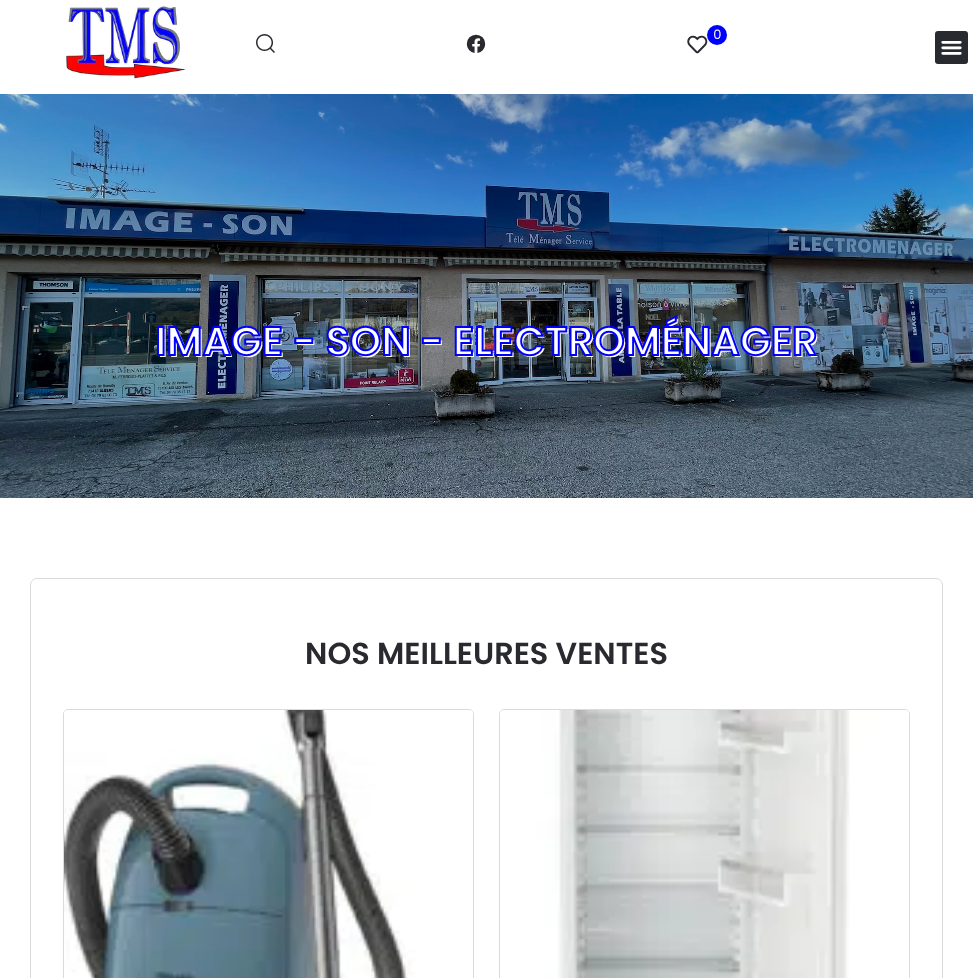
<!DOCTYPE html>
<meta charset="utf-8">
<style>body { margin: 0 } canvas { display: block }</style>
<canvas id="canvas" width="973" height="978"></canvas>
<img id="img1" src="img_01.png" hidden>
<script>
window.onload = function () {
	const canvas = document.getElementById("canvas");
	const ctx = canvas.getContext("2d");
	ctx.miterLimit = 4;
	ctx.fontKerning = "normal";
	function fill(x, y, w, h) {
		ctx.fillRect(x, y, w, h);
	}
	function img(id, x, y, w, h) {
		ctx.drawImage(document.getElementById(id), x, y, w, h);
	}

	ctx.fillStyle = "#FFFFFF";
	fill(0, 0, 973, 978);
	img("img1", 0, 0, 973, 978);
};
</script>
